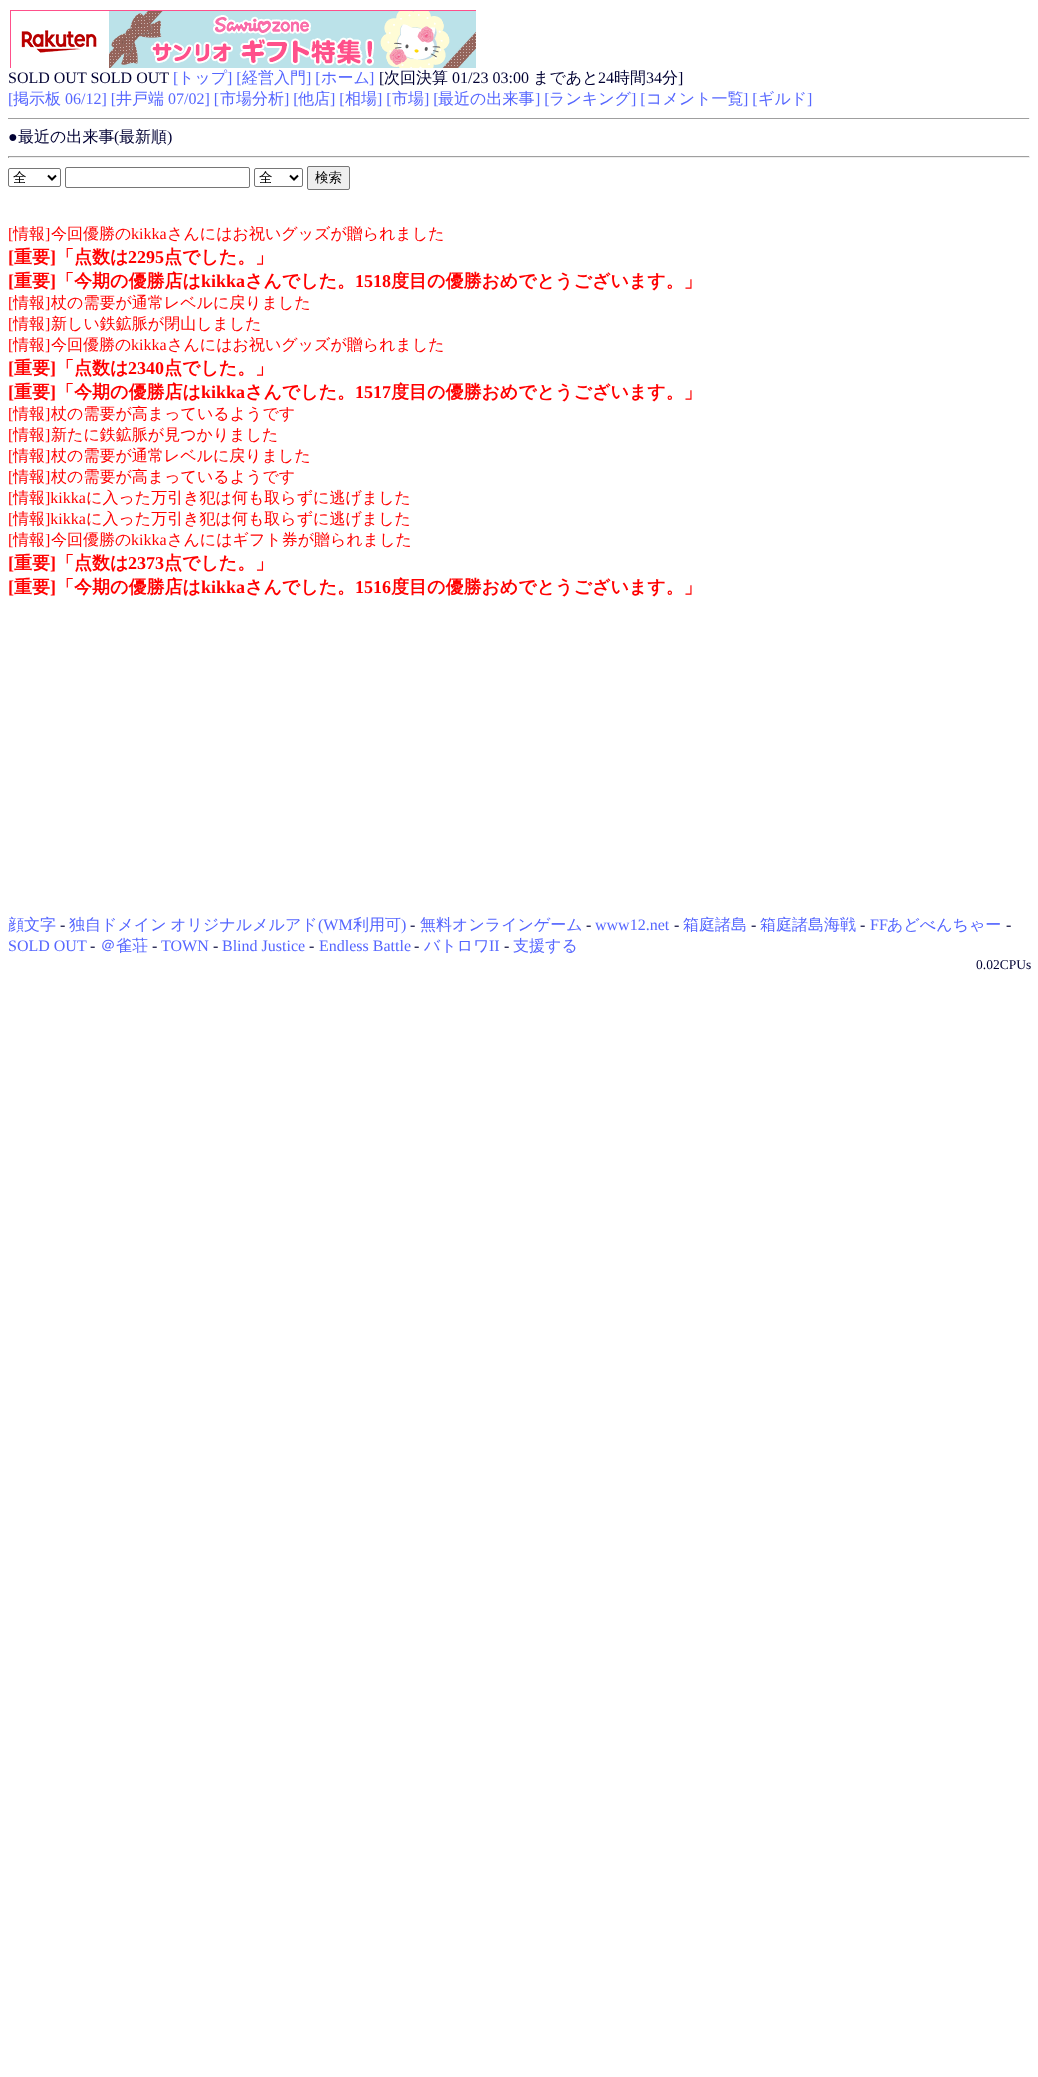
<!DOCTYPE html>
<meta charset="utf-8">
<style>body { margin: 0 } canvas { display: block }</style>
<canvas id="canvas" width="1038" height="2077"></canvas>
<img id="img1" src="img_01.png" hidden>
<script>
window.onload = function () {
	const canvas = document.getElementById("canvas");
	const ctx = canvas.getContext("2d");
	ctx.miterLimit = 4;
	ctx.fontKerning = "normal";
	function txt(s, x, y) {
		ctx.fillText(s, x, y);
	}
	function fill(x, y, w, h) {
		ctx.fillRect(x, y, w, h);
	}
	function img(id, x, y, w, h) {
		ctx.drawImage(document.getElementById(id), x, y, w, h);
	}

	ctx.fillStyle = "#FFFFFF";
	fill(0, 0, 1038, 2077);
	img("img1", 10, 10, 466, 58);
	ctx.fillStyle = "#9F9F9F";
	fill(8, 118, 1022, 1);
	ctx.fillStyle = "#EEEEEE";
	fill(1029, 118, 1, 1);
	ctx.fillStyle = "#9F9F9F";
	fill(8, 156, 1022, 1);
	ctx.fillStyle = "#EEEEEE";
	fill(1029, 156, 1, 2);
	fill(8, 157, 1022, 1);
	ctx.fillStyle = "#9F9F9F";
	fill(8, 156, 1, 2);
	ctx.beginPath();
	ctx.roundRect(8.5, 168.5, 52, 18, 1.5);
	ctx.strokeStyle = "#767676";
	ctx.stroke();
	ctx.beginPath();
	ctx.moveTo(48, 175.5);
	ctx.lineTo(52, 179.5);
	ctx.lineTo(56, 175.5);
	ctx.strokeStyle = "#000000";
	ctx.lineWidth = 2;
	ctx.stroke();
	ctx.beginPath();
	ctx.roundRect(65.5, 167.5, 184, 20, 1.5);
	ctx.strokeStyle = "#767676";
	ctx.lineWidth = 1;
	ctx.stroke();
	ctx.beginPath();
	ctx.roundRect(254.5, 168.5, 48, 18, 1.5);
	ctx.stroke();
	ctx.beginPath();
	ctx.moveTo(290, 175.5);
	ctx.lineTo(294, 179.5);
	ctx.lineTo(298, 175.5);
	ctx.strokeStyle = "#000000";
	ctx.lineWidth = 2;
	ctx.stroke();
	ctx.fillStyle = "#EFEFEF";
	ctx.beginPath();
	ctx.roundRect(307.5, 166.5, 42, 23, 1.5);
	ctx.fill();
	ctx.strokeStyle = "#767676";
	ctx.lineWidth = 1;
	ctx.stroke();
	ctx.font = "16px Liberation Serif";
	ctx.fillStyle = "#000033";
	txt("SOLD OUT SOLD OUT", 8, 83);
	ctx.fillStyle = "#5566FF";
	txt("[", 173, 83);
	ctx.font = "500 16px WenQuanYi Zen Hei";
	txt("トップ", 178, 83);
	ctx.font = "16px Liberation Serif";
	txt("] [", 227, 83);
	ctx.font = "500 16px WenQuanYi Zen Hei";
	txt("経営入門", 242, 83);
	ctx.font = "16px Liberation Serif";
	txt("] [", 306, 83);
	ctx.font = "500 16px WenQuanYi Zen Hei";
	txt("ホーム", 321, 83);
	ctx.font = "16px Liberation Serif";
	txt("]", 369, 83);
	ctx.fillStyle = "#000033";
	txt("[", 379, 83);
	ctx.font = "500 16px WenQuanYi Zen Hei";
	txt("次回決算", 384, 83);
	ctx.font = "16px Liberation Serif";
	txt("01/23 03:00", 452, 83);
	ctx.font = "500 16px WenQuanYi Zen Hei";
	txt("まであと", 533, 83);
	ctx.font = "16px Liberation Serif";
	txt("24", 598, 83);
	ctx.font = "500 16px WenQuanYi Zen Hei";
	txt("時間", 614, 83);
	ctx.font = "16px Liberation Serif";
	txt("34", 646, 83);
	ctx.font = "500 16px WenQuanYi Zen Hei";
	txt("分", 662, 83);
	ctx.font = "16px Liberation Serif";
	txt("]", 678, 83);
	ctx.fillStyle = "#5566FF";
	txt("[", 8, 104);
	ctx.font = "500 16px WenQuanYi Zen Hei";
	txt("掲示板", 13, 104);
	ctx.font = "16px Liberation Serif";
	txt("06/12] [", 65, 104);
	ctx.font = "500 16px WenQuanYi Zen Hei";
	txt("井戸端", 116, 104);
	ctx.font = "16px Liberation Serif";
	txt("07/02] [", 168, 104);
	ctx.font = "500 16px WenQuanYi Zen Hei";
	txt("市場分析", 220, 104);
	ctx.font = "16px Liberation Serif";
	txt("] [", 284, 104);
	ctx.font = "500 16px WenQuanYi Zen Hei";
	txt("他店", 298, 104);
	ctx.font = "16px Liberation Serif";
	txt("] [", 330, 104);
	ctx.font = "500 16px WenQuanYi Zen Hei";
	txt("相場", 345, 104);
	ctx.font = "16px Liberation Serif";
	txt("] [", 377, 104);
	ctx.font = "500 16px WenQuanYi Zen Hei";
	txt("市場", 392, 104);
	ctx.font = "16px Liberation Serif";
	txt("] [", 424, 104);
	ctx.font = "500 16px WenQuanYi Zen Hei";
	txt("最近の出来事", 438, 104);
	ctx.font = "16px Liberation Serif";
	txt("] [", 535, 104);
	ctx.font = "500 16px WenQuanYi Zen Hei";
	txt("ランキング", 549, 104);
	ctx.font = "16px Liberation Serif";
	txt("] [", 631, 104);
	ctx.font = "500 16px WenQuanYi Zen Hei";
	txt("コメント一覧", 646, 104);
	ctx.font = "16px Liberation Serif";
	txt("] [", 743, 104);
	ctx.font = "500 16px WenQuanYi Zen Hei";
	txt("ギルド", 758, 104);
	ctx.font = "16px Liberation Serif";
	txt("]", 807, 104);
	ctx.fillStyle = "#000033";
	txt("●", 8, 142);
	ctx.font = "500 16px WenQuanYi Zen Hei";
	txt("最近の出来事", 18, 142);
	ctx.font = "16px Liberation Serif";
	txt("(", 114, 142);
	ctx.font = "500 16px WenQuanYi Zen Hei";
	txt("最新順", 119, 142);
	ctx.font = "16px Liberation Serif";
	txt(")", 167, 142);
	ctx.font = "500 13.5px WenQuanYi Zen Hei";
	ctx.fillStyle = "#000000";
	txt("全", 13, 182);
	txt("全", 259, 182);
	txt("検索", 315, 182);
	ctx.font = "16px Liberation Serif";
	ctx.fillStyle = "#FF0000";
	txt("[", 8, 239);
	ctx.font = "500 16px WenQuanYi Zen Hei";
	txt("情報", 13, 239);
	ctx.font = "16px Liberation Serif";
	txt("]", 45, 239);
	ctx.font = "500 16px WenQuanYi Zen Hei";
	txt("今回優勝の", 51, 239);
	ctx.font = "16px Liberation Serif";
	txt("kikka", 131, 239);
	ctx.font = "500 16px WenQuanYi Zen Hei";
	txt("さんにはお祝いグッズが贈られました", 167, 239);
	ctx.font = "bold 18px Liberation Serif";
	txt("[", 8, 263);
	ctx.font = "bold 18px WenQuanYi Zen Hei";
	txt("重要", 14, 263);
	ctx.font = "bold 18px Liberation Serif";
	txt("]", 50, 263);
	ctx.font = "bold 18px WenQuanYi Zen Hei";
	txt("「点数は", 56, 263);
	ctx.font = "bold 18px Liberation Serif";
	txt("2295", 128, 263);
	ctx.font = "bold 18px WenQuanYi Zen Hei";
	txt("点でした。」", 164, 263);
	ctx.font = "bold 18px Liberation Serif";
	txt("[", 8, 287);
	ctx.font = "bold 18px WenQuanYi Zen Hei";
	txt("重要", 14, 287);
	ctx.font = "bold 18px Liberation Serif";
	txt("]", 50, 287);
	ctx.font = "bold 18px WenQuanYi Zen Hei";
	txt("「今期の優勝店は", 56, 287);
	ctx.font = "bold 18px Liberation Serif";
	txt("kikka", 201, 287);
	ctx.font = "bold 18px WenQuanYi Zen Hei";
	txt("さんでした。", 245, 287);
	ctx.font = "bold 18px Liberation Serif";
	txt("1518", 355, 287);
	ctx.font = "bold 18px WenQuanYi Zen Hei";
	txt("度目の優勝おめでとうございます。」", 391, 287);
	ctx.font = "16px Liberation Serif";
	txt("[", 8, 308);
	ctx.font = "500 16px WenQuanYi Zen Hei";
	txt("情報", 13, 308);
	ctx.font = "16px Liberation Serif";
	txt("]", 45, 308);
	ctx.font = "500 16px WenQuanYi Zen Hei";
	txt("杖の需要が通常レベルに戻りました", 51, 308);
	ctx.font = "16px Liberation Serif";
	txt("[", 8, 329);
	ctx.font = "500 16px WenQuanYi Zen Hei";
	txt("情報", 13, 329);
	ctx.font = "16px Liberation Serif";
	txt("]", 45, 329);
	ctx.font = "500 16px WenQuanYi Zen Hei";
	txt("新しい鉄鉱脈が閉山しました", 51, 329);
	ctx.font = "16px Liberation Serif";
	txt("[", 8, 350);
	ctx.font = "500 16px WenQuanYi Zen Hei";
	txt("情報", 13, 350);
	ctx.font = "16px Liberation Serif";
	txt("]", 45, 350);
	ctx.font = "500 16px WenQuanYi Zen Hei";
	txt("今回優勝の", 51, 350);
	ctx.font = "16px Liberation Serif";
	txt("kikka", 131, 350);
	ctx.font = "500 16px WenQuanYi Zen Hei";
	txt("さんにはお祝いグッズが贈られました", 167, 350);
	ctx.font = "bold 18px Liberation Serif";
	txt("[", 8, 374);
	ctx.font = "bold 18px WenQuanYi Zen Hei";
	txt("重要", 14, 374);
	ctx.font = "bold 18px Liberation Serif";
	txt("]", 50, 374);
	ctx.font = "bold 18px WenQuanYi Zen Hei";
	txt("「点数は", 56, 374);
	ctx.font = "bold 18px Liberation Serif";
	txt("2340", 128, 374);
	ctx.font = "bold 18px WenQuanYi Zen Hei";
	txt("点でした。」", 164, 374);
	ctx.font = "bold 18px Liberation Serif";
	txt("[", 8, 398);
	ctx.font = "bold 18px WenQuanYi Zen Hei";
	txt("重要", 14, 398);
	ctx.font = "bold 18px Liberation Serif";
	txt("]", 50, 398);
	ctx.font = "bold 18px WenQuanYi Zen Hei";
	txt("「今期の優勝店は", 56, 398);
	ctx.font = "bold 18px Liberation Serif";
	txt("kikka", 201, 398);
	ctx.font = "bold 18px WenQuanYi Zen Hei";
	txt("さんでした。", 245, 398);
	ctx.font = "bold 18px Liberation Serif";
	txt("1517", 355, 398);
	ctx.font = "bold 18px WenQuanYi Zen Hei";
	txt("度目の優勝おめでとうございます。」", 391, 398);
	ctx.font = "16px Liberation Serif";
	txt("[", 8, 419);
	ctx.font = "500 16px WenQuanYi Zen Hei";
	txt("情報", 13, 419);
	ctx.font = "16px Liberation Serif";
	txt("]", 45, 419);
	ctx.font = "500 16px WenQuanYi Zen Hei";
	txt("杖の需要が高まっているようです", 51, 419);
	ctx.font = "16px Liberation Serif";
	txt("[", 8, 440);
	ctx.font = "500 16px WenQuanYi Zen Hei";
	txt("情報", 13, 440);
	ctx.font = "16px Liberation Serif";
	txt("]", 45, 440);
	ctx.font = "500 16px WenQuanYi Zen Hei";
	txt("新たに鉄鉱脈が見つかりました", 51, 440);
	ctx.font = "16px Liberation Serif";
	txt("[", 8, 461);
	ctx.font = "500 16px WenQuanYi Zen Hei";
	txt("情報", 13, 461);
	ctx.font = "16px Liberation Serif";
	txt("]", 45, 461);
	ctx.font = "500 16px WenQuanYi Zen Hei";
	txt("杖の需要が通常レベルに戻りました", 51, 461);
	ctx.font = "16px Liberation Serif";
	txt("[", 8, 482);
	ctx.font = "500 16px WenQuanYi Zen Hei";
	txt("情報", 13, 482);
	ctx.font = "16px Liberation Serif";
	txt("]", 45, 482);
	ctx.font = "500 16px WenQuanYi Zen Hei";
	txt("杖の需要が高まっているようです", 51, 482);
	ctx.font = "16px Liberation Serif";
	txt("[", 8, 503);
	ctx.font = "500 16px WenQuanYi Zen Hei";
	txt("情報", 13, 503);
	ctx.font = "16px Liberation Serif";
	txt("]kikka", 45, 503);
	ctx.font = "500 16px WenQuanYi Zen Hei";
	txt("に入った万引き犯は何も取らずに逃げました", 86, 503);
	ctx.font = "16px Liberation Serif";
	txt("[", 8, 524);
	ctx.font = "500 16px WenQuanYi Zen Hei";
	txt("情報", 13, 524);
	ctx.font = "16px Liberation Serif";
	txt("]kikka", 45, 524);
	ctx.font = "500 16px WenQuanYi Zen Hei";
	txt("に入った万引き犯は何も取らずに逃げました", 86, 524);
	ctx.font = "16px Liberation Serif";
	txt("[", 8, 545);
	ctx.font = "500 16px WenQuanYi Zen Hei";
	txt("情報", 13, 545);
	ctx.font = "16px Liberation Serif";
	txt("]", 45, 545);
	ctx.font = "500 16px WenQuanYi Zen Hei";
	txt("今回優勝の", 51, 545);
	ctx.font = "16px Liberation Serif";
	txt("kikka", 131, 545);
	ctx.font = "500 16px WenQuanYi Zen Hei";
	txt("さんにはギフト券が贈られました", 167, 545);
	ctx.font = "bold 18px Liberation Serif";
	txt("[", 8, 569);
	ctx.font = "bold 18px WenQuanYi Zen Hei";
	txt("重要", 14, 569);
	ctx.font = "bold 18px Liberation Serif";
	txt("]", 50, 569);
	ctx.font = "bold 18px WenQuanYi Zen Hei";
	txt("「点数は", 56, 569);
	ctx.font = "bold 18px Liberation Serif";
	txt("2373", 128, 569);
	ctx.font = "bold 18px WenQuanYi Zen Hei";
	txt("点でした。」", 164, 569);
	ctx.font = "bold 18px Liberation Serif";
	txt("[", 8, 593);
	ctx.font = "bold 18px WenQuanYi Zen Hei";
	txt("重要", 14, 593);
	ctx.font = "bold 18px Liberation Serif";
	txt("]", 50, 593);
	ctx.font = "bold 18px WenQuanYi Zen Hei";
	txt("「今期の優勝店は", 56, 593);
	ctx.font = "bold 18px Liberation Serif";
	txt("kikka", 201, 593);
	ctx.font = "bold 18px WenQuanYi Zen Hei";
	txt("さんでした。", 245, 593);
	ctx.font = "bold 18px Liberation Serif";
	txt("1516", 355, 593);
	ctx.font = "bold 18px WenQuanYi Zen Hei";
	txt("度目の優勝おめでとうございます。」", 391, 593);
	ctx.font = "500 16px WenQuanYi Zen Hei";
	ctx.fillStyle = "#5566FF";
	txt("顔文字", 8, 930);
	ctx.font = "16px Liberation Serif";
	ctx.fillStyle = "#000033";
	txt("-", 60, 930);
	ctx.wordSpacing = "-1px";
	ctx.font = "500 16px WenQuanYi Zen Hei";
	ctx.fillStyle = "#5566FF";
	txt("独自ドメイン オリジナルメルアド", 69, 930);
	ctx.wordSpacing = "0px";
	ctx.font = "16px Liberation Serif";
	txt("(WM", 318, 930);
	ctx.font = "500 16px WenQuanYi Zen Hei";
	txt("利用可", 353, 930);
	ctx.font = "16px Liberation Serif";
	txt(")", 401, 930);
	ctx.fillStyle = "#000033";
	txt("-", 410, 930);
	ctx.font = "500 16px WenQuanYi Zen Hei";
	ctx.fillStyle = "#5566FF";
	txt("無料オンラインゲーム", 420, 930);
	ctx.font = "16px Liberation Serif";
	ctx.fillStyle = "#000033";
	txt("-", 586, 930);
	ctx.fillStyle = "#5566FF";
	txt("www12.net", 595, 930);
	ctx.fillStyle = "#000033";
	txt("-", 674, 930);
	ctx.font = "500 16px WenQuanYi Zen Hei";
	ctx.fillStyle = "#5566FF";
	txt("箱庭諸島", 683, 930);
	ctx.font = "16px Liberation Serif";
	ctx.fillStyle = "#000033";
	txt("-", 751, 930);
	ctx.font = "500 16px WenQuanYi Zen Hei";
	ctx.fillStyle = "#5566FF";
	txt("箱庭諸島海戦", 760, 930);
	ctx.font = "16px Liberation Serif";
	ctx.fillStyle = "#000033";
	txt("-", 860, 930);
	ctx.fillStyle = "#5566FF";
	txt("FF", 870, 930);
	ctx.font = "500 16px WenQuanYi Zen Hei";
	txt("あどべんちゃー", 887, 930);
	ctx.font = "16px Liberation Serif";
	ctx.fillStyle = "#000033";
	txt("-", 1006, 930);
	ctx.fillStyle = "#5566FF";
	txt("SOLD OUT", 8, 951);
	ctx.fillStyle = "#000033";
	txt("-", 90, 951);
	ctx.font = "500 16px WenQuanYi Zen Hei";
	ctx.fillStyle = "#5566FF";
	txt("＠雀荘", 100, 951);
	ctx.font = "16px Liberation Serif";
	ctx.fillStyle = "#000033";
	txt("-", 152, 951);
	ctx.fillStyle = "#5566FF";
	txt("TOWN", 161, 951);
	ctx.fillStyle = "#000033";
	txt("-", 213, 951);
	ctx.fillStyle = "#5566FF";
	txt("Blind Justice", 222, 951);
	ctx.fillStyle = "#000033";
	txt("-", 309, 951);
	ctx.fillStyle = "#5566FF";
	txt("Endless Battle", 319, 951);
	ctx.fillStyle = "#000033";
	txt("-", 414, 951);
	ctx.font = "500 16px WenQuanYi Zen Hei";
	ctx.fillStyle = "#5566FF";
	txt("バトロワ", 424, 951);
	ctx.font = "16px Liberation Serif";
	txt("II", 489, 951);
	ctx.fillStyle = "#000033";
	txt("-", 504, 951);
	ctx.font = "500 16px WenQuanYi Zen Hei";
	ctx.fillStyle = "#5566FF";
	txt("支援する", 513, 951);
	ctx.font = "13.5px Liberation Serif";
	ctx.fillStyle = "#000033";
	txt("0.02CPUs", 976, 969);
};
</script>
